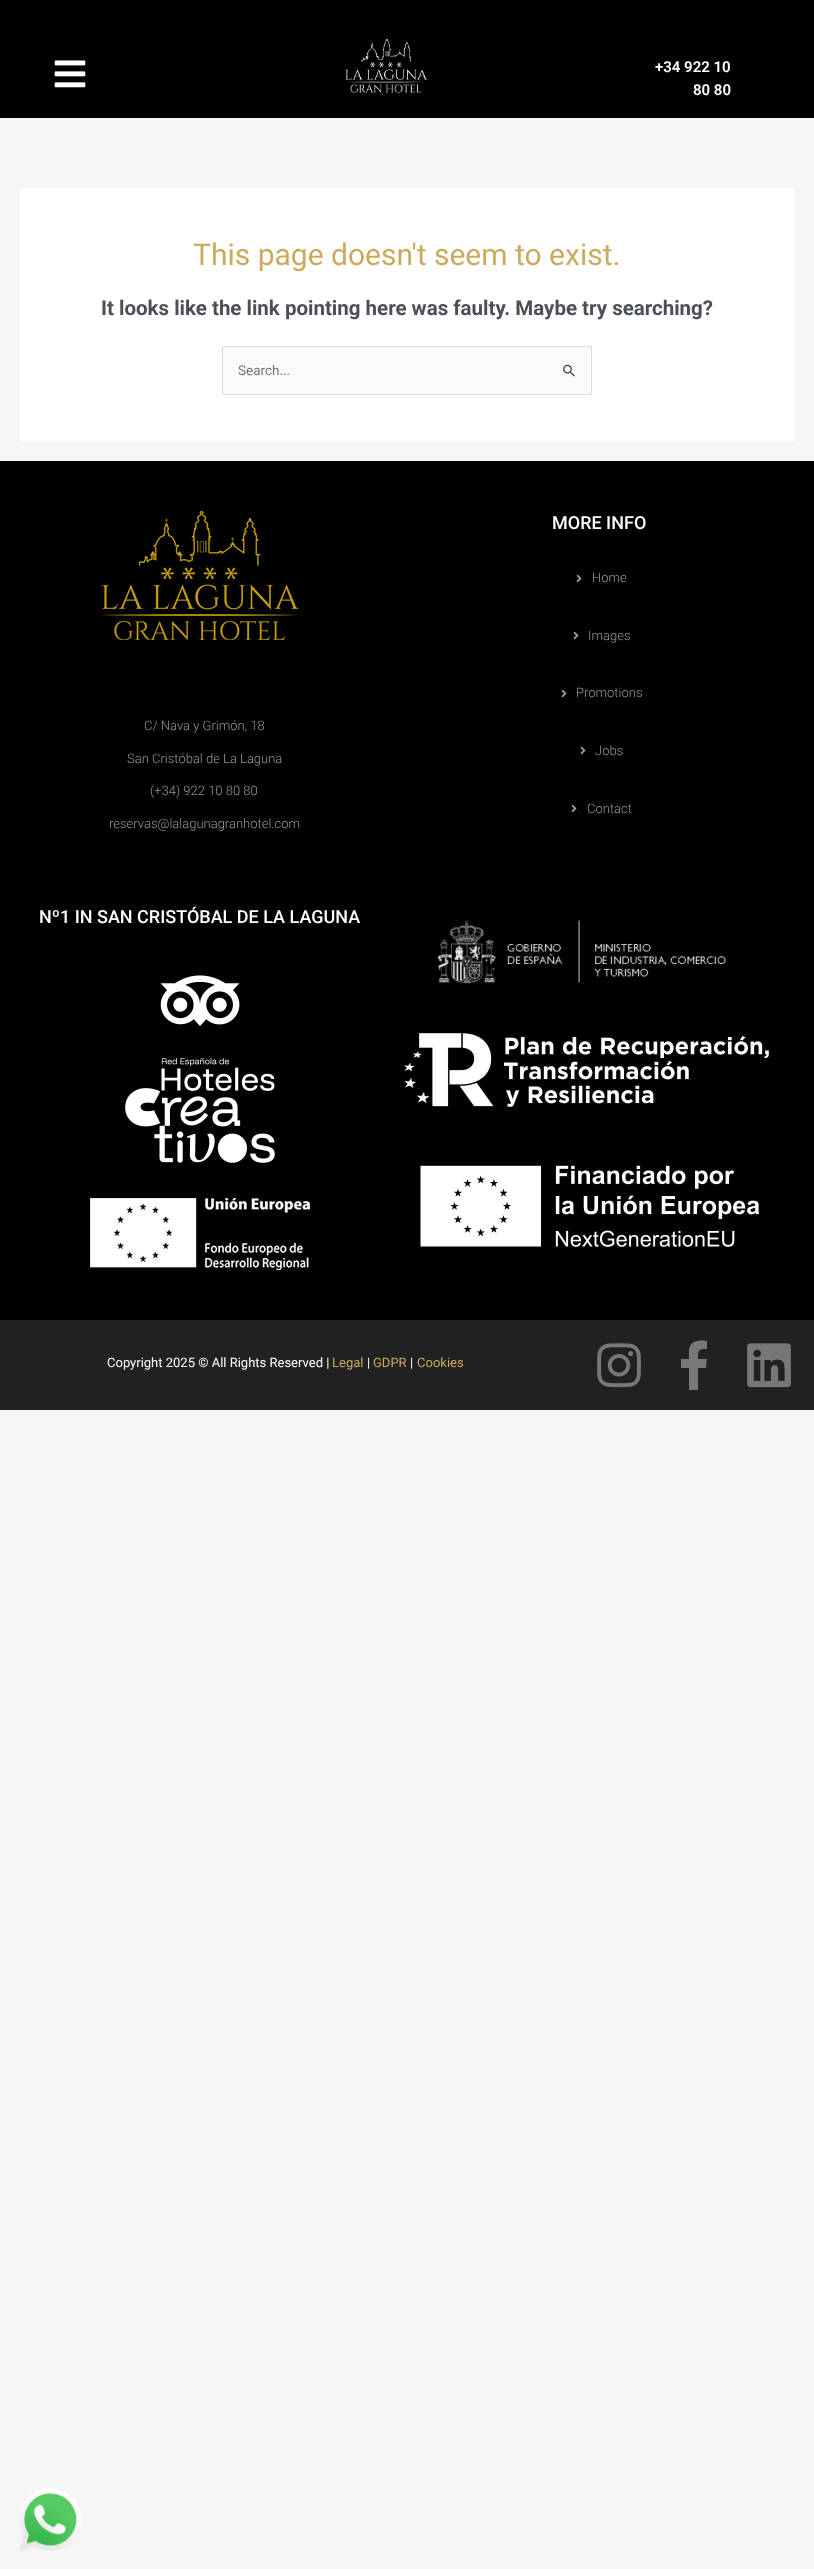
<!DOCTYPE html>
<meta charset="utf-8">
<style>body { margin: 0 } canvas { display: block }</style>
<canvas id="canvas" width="814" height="2569"></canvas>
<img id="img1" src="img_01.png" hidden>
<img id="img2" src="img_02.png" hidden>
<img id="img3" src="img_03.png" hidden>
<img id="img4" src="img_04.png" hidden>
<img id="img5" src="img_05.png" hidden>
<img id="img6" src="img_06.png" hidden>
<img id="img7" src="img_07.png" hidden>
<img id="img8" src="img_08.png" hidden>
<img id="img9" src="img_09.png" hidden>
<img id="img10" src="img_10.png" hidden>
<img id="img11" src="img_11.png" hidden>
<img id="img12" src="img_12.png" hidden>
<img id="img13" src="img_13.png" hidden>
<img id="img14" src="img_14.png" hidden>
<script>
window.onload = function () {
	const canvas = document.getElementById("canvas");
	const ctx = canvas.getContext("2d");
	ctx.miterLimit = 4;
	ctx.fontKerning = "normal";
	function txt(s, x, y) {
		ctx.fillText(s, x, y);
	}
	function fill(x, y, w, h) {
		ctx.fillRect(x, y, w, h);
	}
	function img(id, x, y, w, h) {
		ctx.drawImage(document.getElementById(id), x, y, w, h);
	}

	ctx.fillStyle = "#F5F5F5";
	fill(0, 0, 814, 2569);
	ctx.fillStyle = "#000000";
	fill(0, 0, 814, 118);
	img("img1", 54, 60, 32, 28);
	img("img2", 345, 39, 83, 54);
	ctx.fillStyle = "#FFFFFF";
	fill(20, 188, 774, 253);
	ctx.fillStyle = "#FAFAFA";
	ctx.beginPath();
	ctx.roundRect(222.5, 346.5, 369, 48, 1.5);
	ctx.fill();
	ctx.strokeStyle = "#DDDDDD";
	ctx.stroke();
	img("img3", 563, 364, 12, 13);
	ctx.fillStyle = "#000000";
	fill(0, 461, 814, 859);
	img("img4", 101, 511, 198, 129);
	img("img5", 576, 574, 6, 9);
	img("img5", 573, 631, 6, 9);
	img("img5", 561, 689, 6, 9);
	img("img5", 580, 746, 6, 9);
	img("img5", 571, 804, 6, 9);
	img("img6", 160, 975, 80, 51);
	img("img7", 125, 1058, 150, 105);
	img("img8", 90, 1198, 220, 72);
	img("img9", 437, 920, 289, 63);
	img("img10", 404, 1033, 365, 74);
	img("img11", 420, 1165, 340, 82);
	ctx.fillStyle = "#212121";
	fill(0, 1320, 814, 90);
	img("img12", 597, 1343, 44, 45);
	ctx.fillStyle = "#787878";
	ctx.beginPath();
	ctx.moveTo(706, 1368);
	ctx.lineTo(698, 1368);
	ctx.lineTo(698, 1390);
	ctx.lineTo(689, 1390);
	ctx.lineTo(689, 1368);
	ctx.lineTo(681, 1368);
	ctx.lineTo(681, 1359);
	ctx.lineTo(689, 1359);
	ctx.lineTo(689, 1350);
	ctx.bezierCurveTo(690, 1340, 700, 1340, 707, 1341);
	ctx.lineTo(707, 1349);
	ctx.bezierCurveTo(698, 1349, 698, 1350, 698, 1359);
	ctx.lineTo(707, 1359);
	ctx.closePath();
	ctx.fill();
	img("img13", 747, 1343, 44, 45);
	img("img14", 19, 2488, 62, 63);
	ctx.font = "600 15px Roboto";
	ctx.fillStyle = "#FFFFFF";
	txt("+34 922 10", 655, 72);
	txt("80 80", 693, 95);
	ctx.font = "30px Roboto";
	ctx.fillStyle = "#CBAA5C";
	txt("This page doesn't seem to exist.", 193, 265);
	ctx.font = "bold 20.5px Roboto";
	ctx.fillStyle = "#4B4F58";
	txt("It looks like the link pointing here was faulty. Maybe try searching?", 101, 315);
	ctx.font = "13.5px Roboto";
	ctx.fillStyle = "#757575";
	txt("Search...", 238, 375);
	ctx.font = "300 13px Roboto";
	ctx.fillStyle = "#999999";
	txt("C/ Nava y Grimón, 18", 144, 730);
	txt("San Cristóbal de La Laguna", 127, 763);
	txt("(+34) 922 10 80 80", 150, 795);
	txt("reservas@lalagunagranhotel.com", 109, 828);
	ctx.font = "500 18px Roboto";
	ctx.fillStyle = "#FFFFFF";
	txt("MORE INFO", 552, 529);
	ctx.font = "300 13px Roboto";
	ctx.fillStyle = "#999999";
	txt("Home", 592, 582);
	txt("Images", 588, 640);
	txt("Promotions", 576, 697);
	txt("Jobs", 595, 755);
	txt("Contact", 587, 813);
	ctx.font = "500 18px Roboto";
	ctx.fillStyle = "#FFFFFF";
	txt("Nº1 IN SAN CRISTÓBAL DE LA LAGUNA", 39, 923);
	ctx.font = "13px Roboto";
	txt("Copyright 2025 © All Rights Reserved |", 107, 1367);
	ctx.fillStyle = "#CBAA5C";
	txt("Legal", 332, 1367);
	ctx.fillStyle = "#FFFFFF";
	txt("|", 367, 1367);
	ctx.fillStyle = "#CBAA5C";
	txt("GDPR", 373, 1367);
	ctx.fillStyle = "#FFFFFF";
	txt("|", 410, 1367);
	ctx.fillStyle = "#CBAA5C";
	txt("Cookies", 417, 1367);
};
</script>
